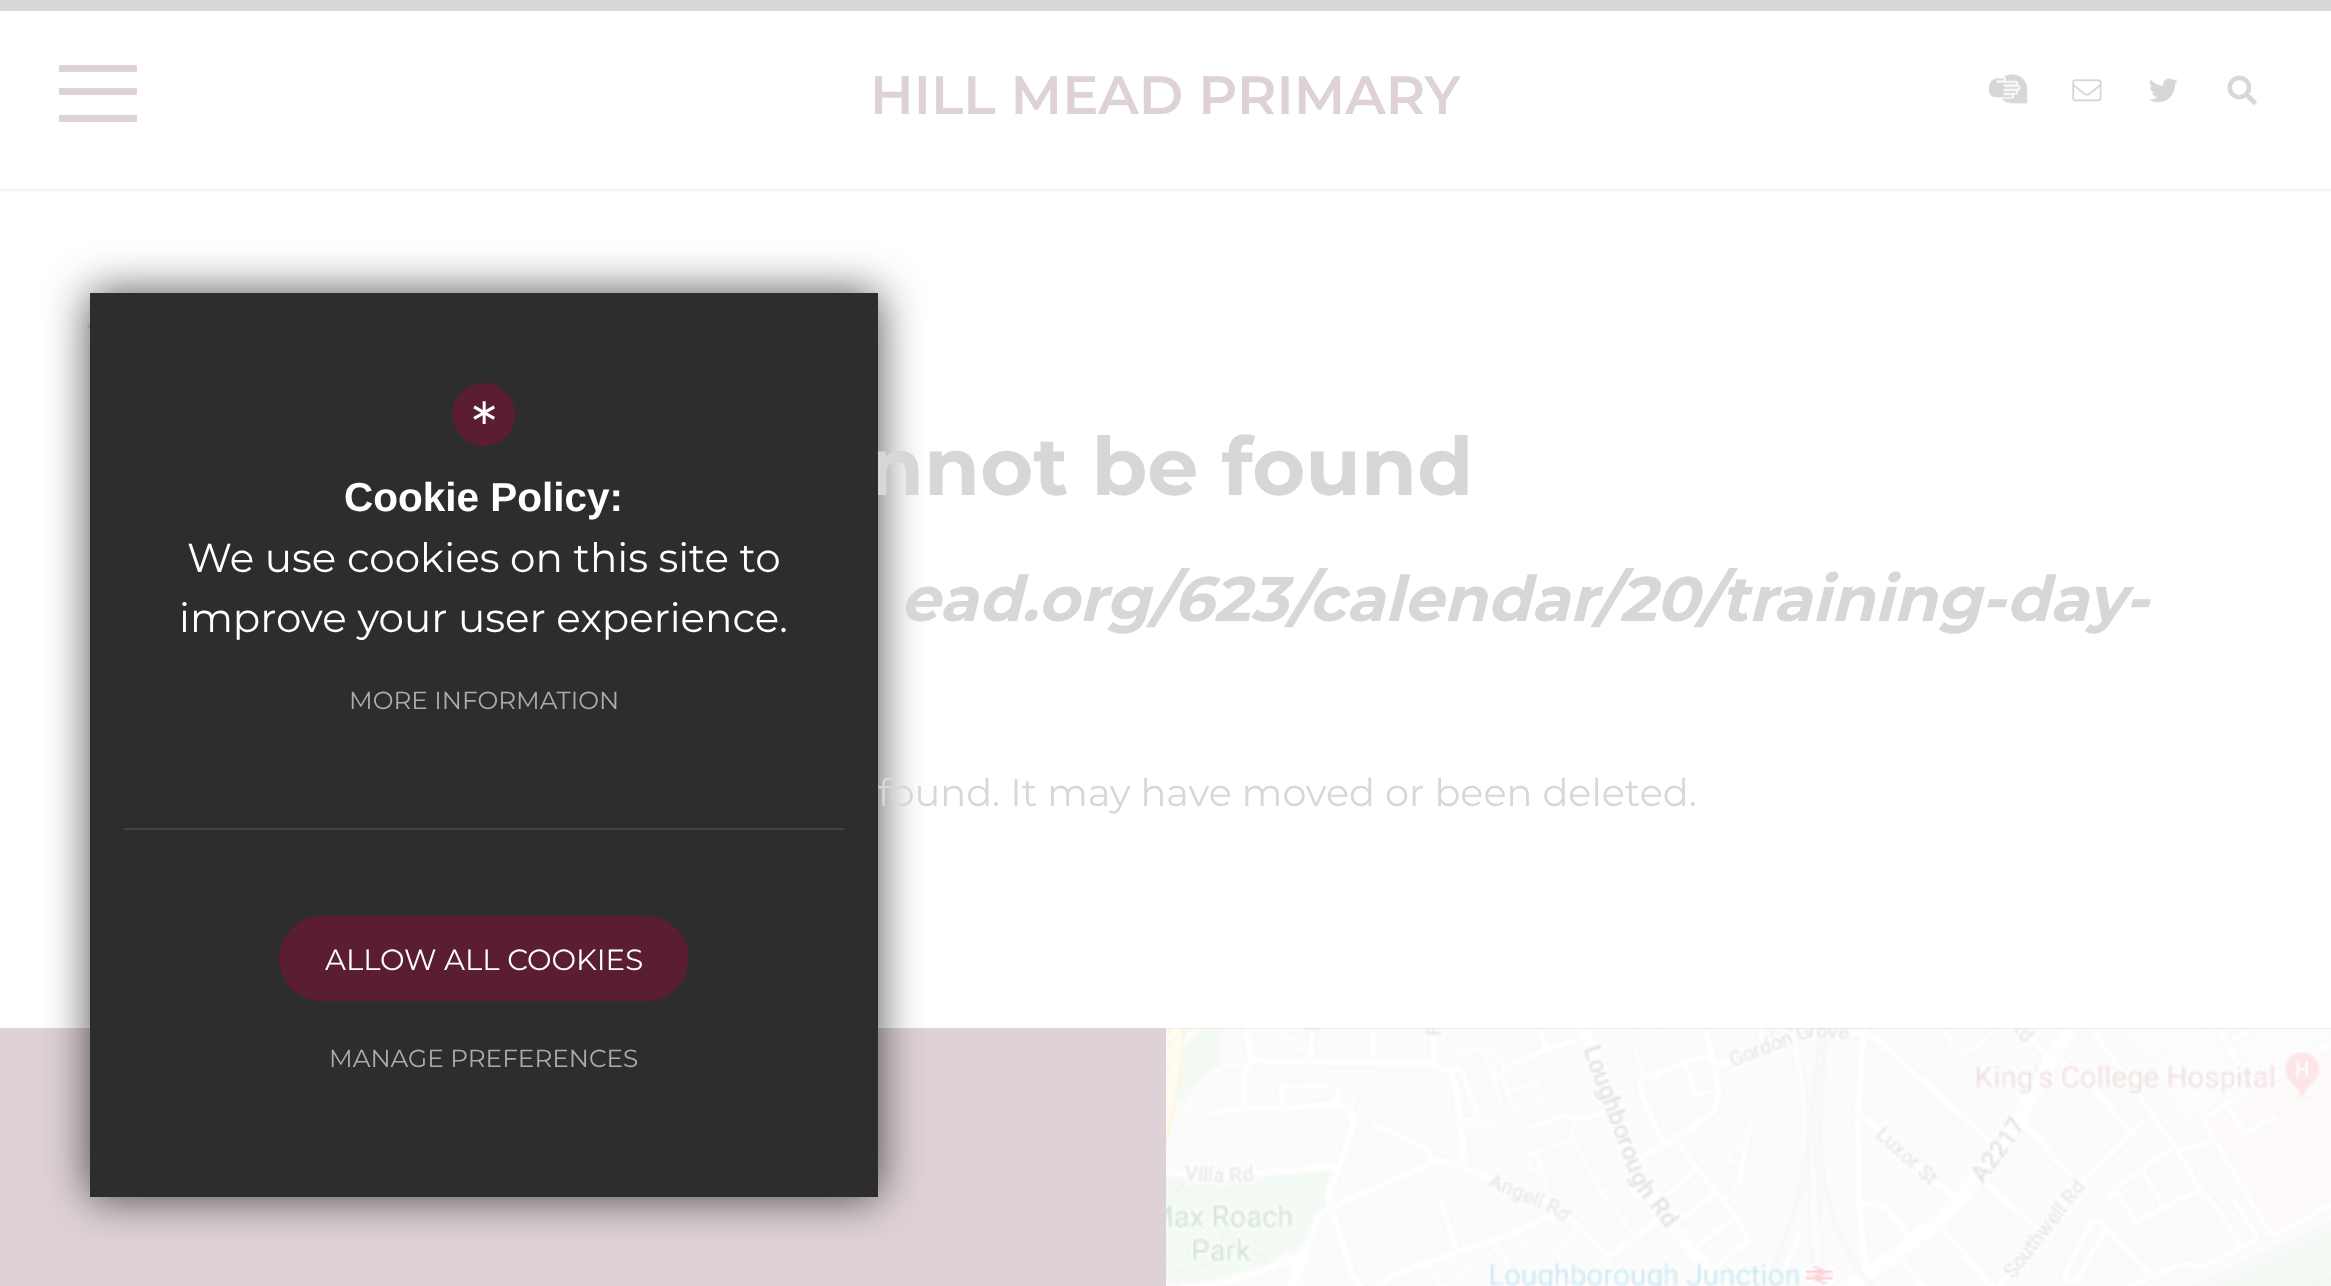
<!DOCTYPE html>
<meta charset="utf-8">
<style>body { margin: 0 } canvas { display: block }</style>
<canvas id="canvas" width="2331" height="1286"></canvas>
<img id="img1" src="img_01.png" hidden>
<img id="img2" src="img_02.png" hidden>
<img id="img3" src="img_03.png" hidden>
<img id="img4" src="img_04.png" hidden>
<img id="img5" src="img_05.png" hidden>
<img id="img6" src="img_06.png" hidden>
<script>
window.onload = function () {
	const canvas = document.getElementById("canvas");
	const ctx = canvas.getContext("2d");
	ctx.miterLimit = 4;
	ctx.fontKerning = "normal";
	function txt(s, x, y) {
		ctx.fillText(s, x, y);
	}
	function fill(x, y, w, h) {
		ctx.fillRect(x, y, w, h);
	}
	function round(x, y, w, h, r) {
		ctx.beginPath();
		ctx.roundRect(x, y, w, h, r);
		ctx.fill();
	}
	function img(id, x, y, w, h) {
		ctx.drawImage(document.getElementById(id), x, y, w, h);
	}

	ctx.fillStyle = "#FFFFFF";
	fill(0, 0, 2331, 1286);
	ctx.fillStyle = "#D5D7D8";
	fill(0, 0, 2331, 11);
	ctx.fillStyle = "#F2F5F8";
	fill(0, 189, 2331, 2);
	ctx.fillStyle = "#DED2D6";
	fill(59, 65, 78, 7);
	fill(59, 88, 78, 7);
	fill(59, 115, 78, 7);
	img("img1", 1989, 74, 39, 31);
	img("img2", 2072, 79, 30, 23);
	img("img3", 2149, 78, 29, 25);
	img("img4", 2227, 75, 30, 30);
	img("img5", 87, 324, 3, 4);
	fill(0, 1028, 2331, 258);
	ctx.fillStyle = "rgba(0, 0, 0, 0.7)";
	ctx.filter = "blur(22.5px)";
	ctx.beginPath();
	ctx.rect(90, 293, 788, 904);
	ctx.fill();
	ctx.filter = "none";
	img("img6", 1166, 1028, 1165, 258);
	ctx.font = "100 54px 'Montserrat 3'";
	ctx.fillStyle = "#DED2D6";
	txt("HILL MEAD PRIMARY", 870, 114);
	ctx.font = "100 81px Montserrat";
	ctx.fillStyle = "#D5D7D8";
	txt("nnot be found", 868, 495);
	ctx.fillStyle = "#2D2D2D";
	fill(90, 293, 788, 904);
	ctx.font = "100 24.75px 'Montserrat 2'";
	ctx.fillStyle = "#ABABAB";
	txt("MANAGE PREFERENCES", 329, 1067);
	ctx.fillStyle = "#5B1E30";
	round(279, 916, 410, 85, 42.5);
	ctx.font = "100 29.25px 'Montserrat 2'";
	ctx.fillStyle = "#FFFFFF";
	txt("ALLOW ALL COOKIES", 325, 970);
	ctx.font = "100 24.75px 'Montserrat 2'";
	ctx.fillStyle = "#ABABAB";
	txt("MORE INFORMATION", 349, 709);
	ctx.font = "100 40.5px 'Montserrat 2'";
	ctx.fillStyle = "#FFFFFF";
	txt("improve your user experience.", 179, 632);
	txt("We use cookies on this site to", 187, 572);
	ctx.font = "bold 40.5px Liberation Sans";
	txt("Cookie Policy:", 344, 511);
	ctx.fillStyle = "#5B1E30";
	ctx.beginPath();
	ctx.arc(483.5, 414.5, 31.5, 0, Math.PI * 2);
	ctx.fill();
	ctx.font = "100 63px 'Montserrat 2'";
	ctx.fillStyle = "#FFFFFF";
	txt("*", 472, 448);
	ctx.fillStyle = "#424242";
	fill(124, 828, 720, 2);
	ctx.font = "italic 100 63px Montserrat";
	ctx.fillStyle = "#D5D7D8";
	txt("ead.org/623/calendar/20/training-day-", 900, 621);
	ctx.font = "100 38.25px 'Montserrat 2'";
	txt("found. It may have moved or been deleted.", 878, 806);
};
</script>
